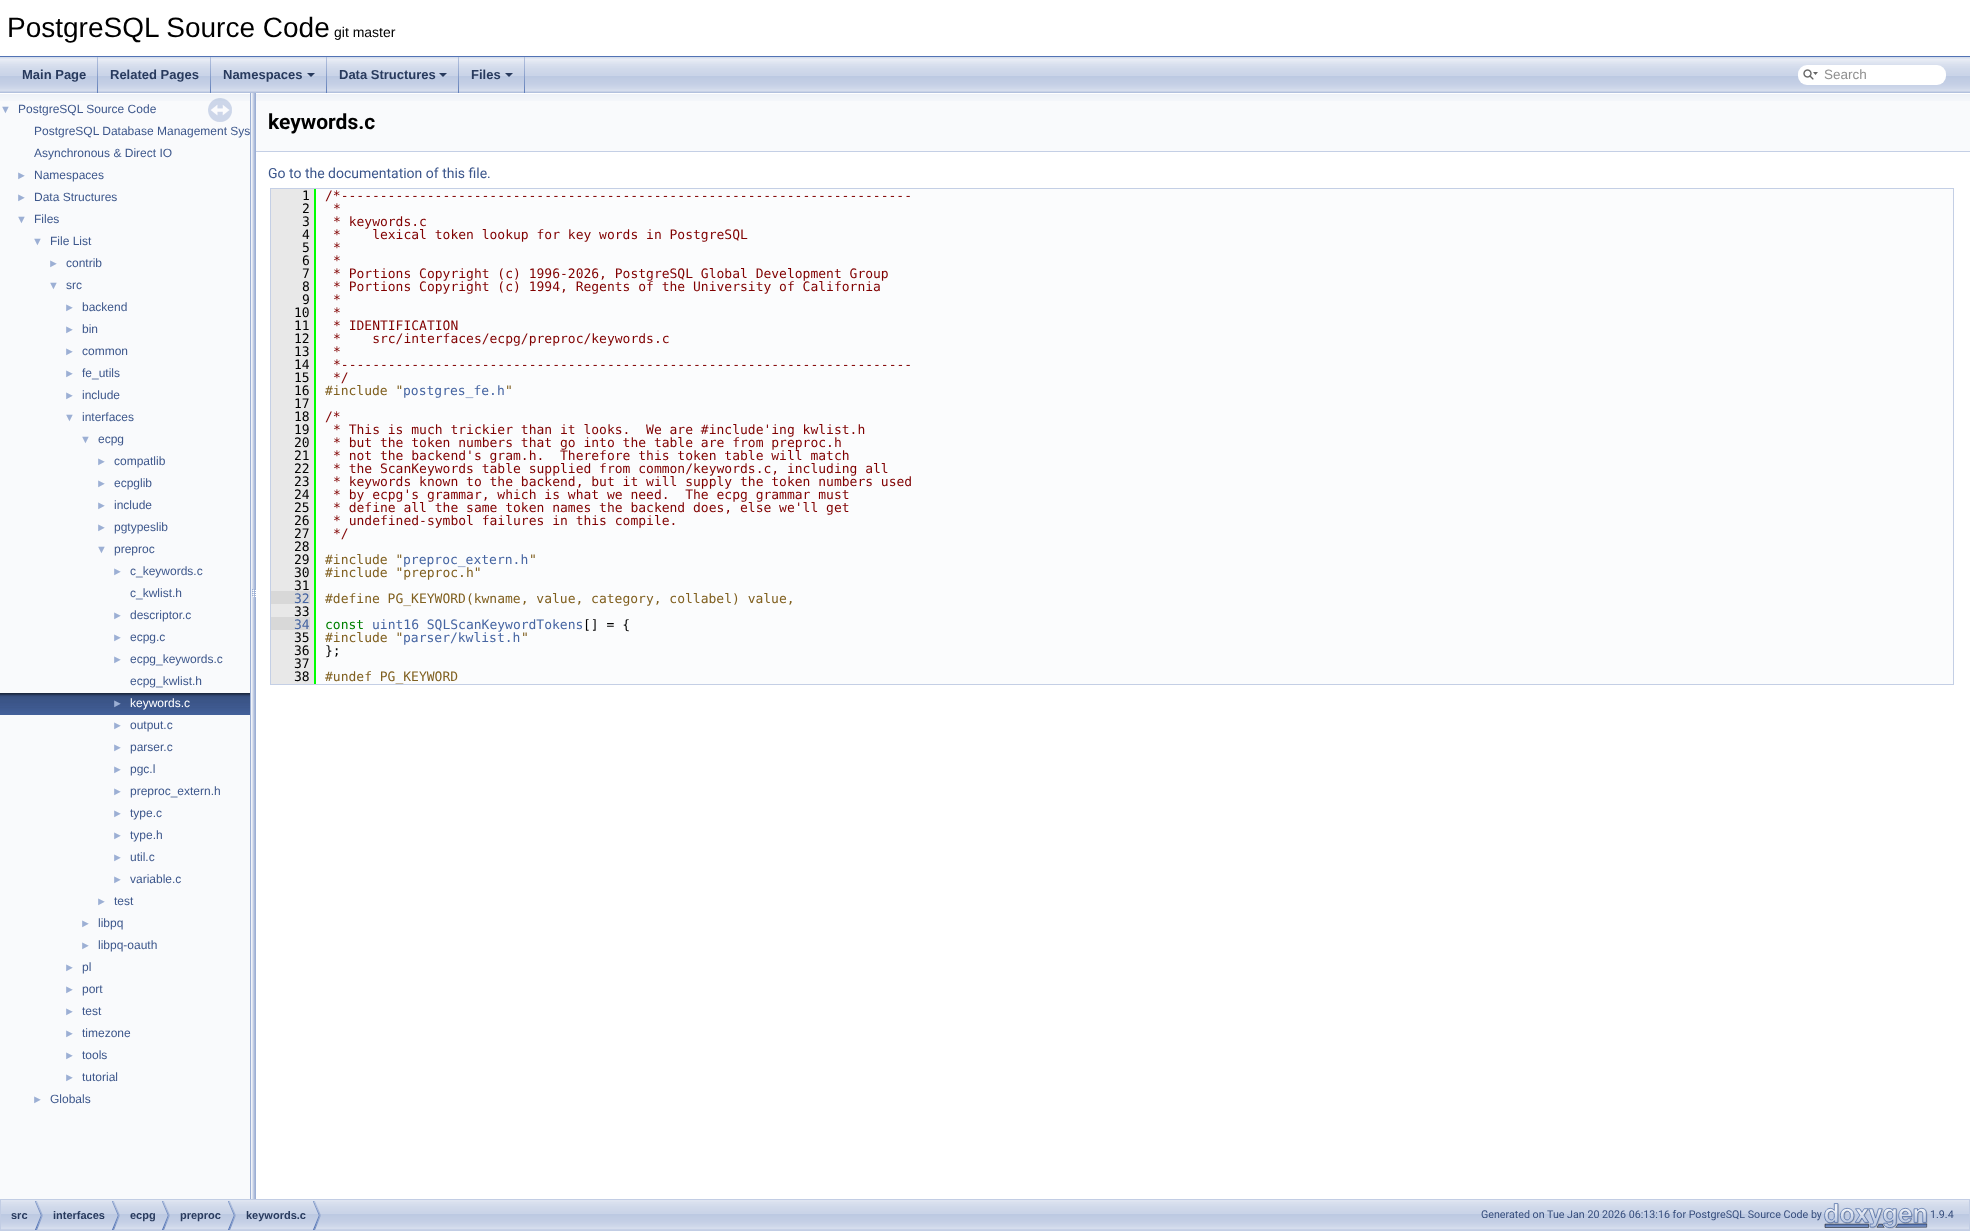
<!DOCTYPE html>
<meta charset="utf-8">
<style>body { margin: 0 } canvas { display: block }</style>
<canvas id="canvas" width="1970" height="1231"></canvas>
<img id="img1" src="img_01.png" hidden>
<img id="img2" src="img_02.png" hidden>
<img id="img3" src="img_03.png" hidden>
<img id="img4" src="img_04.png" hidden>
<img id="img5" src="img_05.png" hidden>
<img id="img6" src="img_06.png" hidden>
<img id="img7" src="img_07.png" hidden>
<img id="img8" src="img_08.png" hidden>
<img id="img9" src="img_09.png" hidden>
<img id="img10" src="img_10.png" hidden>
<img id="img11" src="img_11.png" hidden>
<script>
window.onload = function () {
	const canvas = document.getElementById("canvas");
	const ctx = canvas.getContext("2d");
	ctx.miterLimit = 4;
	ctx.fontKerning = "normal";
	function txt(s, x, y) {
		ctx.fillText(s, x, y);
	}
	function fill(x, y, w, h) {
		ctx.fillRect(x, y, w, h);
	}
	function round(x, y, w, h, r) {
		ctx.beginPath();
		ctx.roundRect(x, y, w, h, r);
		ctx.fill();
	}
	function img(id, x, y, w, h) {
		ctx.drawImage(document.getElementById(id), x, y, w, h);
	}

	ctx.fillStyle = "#FFFFFF";
	fill(0, 0, 1970, 1231);
	ctx.fillStyle = "#5373B4";
	fill(0, 56, 1970, 1);
	img("img1", 0, 57, 1970, 36);
	img("img2", 97, 57, 1, 36);
	img("img2", 210, 57, 1, 36);
	img("img2", 326, 57, 1, 36);
	ctx.fillStyle = "#283A5D";
	ctx.beginPath();
	ctx.moveTo(307, 73);
	ctx.lineTo(315, 73);
	ctx.lineTo(311, 77);
	ctx.closePath();
	ctx.fill();
	img("img2", 458, 57, 1, 36);
	ctx.beginPath();
	ctx.moveTo(439, 73);
	ctx.lineTo(447, 73);
	ctx.lineTo(443, 77);
	ctx.closePath();
	ctx.fill();
	img("img2", 524, 57, 1, 36);
	ctx.beginPath();
	ctx.moveTo(505, 73);
	ctx.lineTo(513, 73);
	ctx.lineTo(509, 77);
	ctx.closePath();
	ctx.fill();
	ctx.fillStyle = "#FFFFFF";
	round(1798, 65, 148, 20, 9);
	img("img3", 1803, 69, 15, 11);
	ctx.fillStyle = "#F9FAFC";
	fill(0, 101, 250, 1098);
	img("img4", 0, 93, 250, 8);
	img("img5", 208, 98, 24, 24);
	img("img6", 0, 693, 250, 22);
	img("img7", 250, 93, 6, 1106);
	fill(256, 101, 1714, 50);
	img("img8", 256, 93, 1714, 8);
	ctx.fillStyle = "#C4CFE5";
	fill(256, 151, 1714, 1);
	ctx.fillStyle = "#FBFCFD";
	fill(316, 189, 1637, 495);
	ctx.strokeStyle = "#C4CFE5";
	ctx.strokeRect(270.5, 188.5, 1683, 496);
	ctx.fillStyle = "#E8E8E8";
	fill(271, 189, 43, 402);
	ctx.fillStyle = "#00FF00";
	fill(314, 189, 2, 495);
	ctx.fillStyle = "#E8E8E8";
	fill(310, 591, 4, 13);
	ctx.fillStyle = "#D8D8D8";
	fill(271, 591, 39, 13);
	ctx.fillStyle = "#E8E8E8";
	fill(271, 604, 43, 13);
	fill(310, 617, 4, 13);
	ctx.fillStyle = "#D8D8D8";
	fill(271, 617, 39, 13);
	ctx.fillStyle = "#E8E8E8";
	fill(271, 630, 43, 54);
	img("img9", 1, 1200, 1968, 30);
	ctx.strokeStyle = "#C2CDE4";
	ctx.strokeRect(0.5, 1199.5, 1969, 31);
	img("img10", 35, 1201, 8, 29);
	img("img10", 112, 1201, 8, 29);
	img("img10", 162, 1201, 8, 29);
	img("img10", 228, 1201, 8, 29);
	img("img10", 313, 1201, 8, 29);
	img("img11", 1824, 1203, 104, 26);
	ctx.font = "28px Liberation Sans";
	ctx.fillStyle = "#000000";
	txt("PostgreSQL Source Code", 7, 37);
	ctx.font = "14px Liberation Sans";
	txt("git master", 334, 37);
	ctx.font = "bold 13px Liberation Sans";
	ctx.fillStyle = "#283A5D";
	txt("Main Page", 22, 79);
	txt("Related Pages", 110, 79);
	txt("Namespaces", 223, 79);
	txt("Data Structures", 339, 79);
	txt("Files", 471, 79);
	ctx.font = "13.5px Liberation Sans";
	ctx.fillStyle = "#909090";
	txt("Search", 1824, 79);
	ctx.font = "11px Liberation Sans";
	ctx.fillStyle = "#9CAFD4";
	txt("▼", 0, 113);
	ctx.font = "12px Liberation Sans";
	ctx.fillStyle = "#3D578C";
	txt("PostgreSQL Source Code", 18, 113);
	txt("PostgreSQL Database Management Sys", 34, 135);
	txt("Asynchronous & Direct IO", 34, 157);
	ctx.font = "11px Liberation Sans";
	ctx.fillStyle = "#9CAFD4";
	txt("►", 16, 179);
	ctx.font = "12px Liberation Sans";
	ctx.fillStyle = "#3D578C";
	txt("Namespaces", 34, 179);
	ctx.font = "11px Liberation Sans";
	ctx.fillStyle = "#9CAFD4";
	txt("►", 16, 201);
	ctx.font = "12px Liberation Sans";
	ctx.fillStyle = "#3D578C";
	txt("Data Structures", 34, 201);
	ctx.font = "11px Liberation Sans";
	ctx.fillStyle = "#9CAFD4";
	txt("▼", 16, 223);
	ctx.font = "12px Liberation Sans";
	ctx.fillStyle = "#3D578C";
	txt("Files", 34, 223);
	ctx.font = "11px Liberation Sans";
	ctx.fillStyle = "#9CAFD4";
	txt("▼", 32, 245);
	ctx.font = "12px Liberation Sans";
	ctx.fillStyle = "#3D578C";
	txt("File List", 50, 245);
	ctx.font = "11px Liberation Sans";
	ctx.fillStyle = "#9CAFD4";
	txt("►", 48, 267);
	ctx.font = "12px Liberation Sans";
	ctx.fillStyle = "#3D578C";
	txt("contrib", 66, 267);
	ctx.font = "11px Liberation Sans";
	ctx.fillStyle = "#9CAFD4";
	txt("▼", 48, 289);
	ctx.font = "12px Liberation Sans";
	ctx.fillStyle = "#3D578C";
	txt("src", 66, 289);
	ctx.font = "11px Liberation Sans";
	ctx.fillStyle = "#9CAFD4";
	txt("►", 64, 311);
	ctx.font = "12px Liberation Sans";
	ctx.fillStyle = "#3D578C";
	txt("backend", 82, 311);
	ctx.font = "11px Liberation Sans";
	ctx.fillStyle = "#9CAFD4";
	txt("►", 64, 333);
	ctx.font = "12px Liberation Sans";
	ctx.fillStyle = "#3D578C";
	txt("bin", 82, 333);
	ctx.font = "11px Liberation Sans";
	ctx.fillStyle = "#9CAFD4";
	txt("►", 64, 355);
	ctx.font = "12px Liberation Sans";
	ctx.fillStyle = "#3D578C";
	txt("common", 82, 355);
	ctx.font = "11px Liberation Sans";
	ctx.fillStyle = "#9CAFD4";
	txt("►", 64, 377);
	ctx.font = "12px Liberation Sans";
	ctx.fillStyle = "#3D578C";
	txt("fe_utils", 82, 377);
	ctx.font = "11px Liberation Sans";
	ctx.fillStyle = "#9CAFD4";
	txt("►", 64, 399);
	ctx.font = "12px Liberation Sans";
	ctx.fillStyle = "#3D578C";
	txt("include", 82, 399);
	ctx.font = "11px Liberation Sans";
	ctx.fillStyle = "#9CAFD4";
	txt("▼", 64, 421);
	ctx.font = "12px Liberation Sans";
	ctx.fillStyle = "#3D578C";
	txt("interfaces", 82, 421);
	ctx.font = "11px Liberation Sans";
	ctx.fillStyle = "#9CAFD4";
	txt("▼", 80, 443);
	ctx.font = "12px Liberation Sans";
	ctx.fillStyle = "#3D578C";
	txt("ecpg", 98, 443);
	ctx.font = "11px Liberation Sans";
	ctx.fillStyle = "#9CAFD4";
	txt("►", 96, 465);
	ctx.font = "12px Liberation Sans";
	ctx.fillStyle = "#3D578C";
	txt("compatlib", 114, 465);
	ctx.font = "11px Liberation Sans";
	ctx.fillStyle = "#9CAFD4";
	txt("►", 96, 487);
	ctx.font = "12px Liberation Sans";
	ctx.fillStyle = "#3D578C";
	txt("ecpglib", 114, 487);
	ctx.font = "11px Liberation Sans";
	ctx.fillStyle = "#9CAFD4";
	txt("►", 96, 509);
	ctx.font = "12px Liberation Sans";
	ctx.fillStyle = "#3D578C";
	txt("include", 114, 509);
	ctx.font = "11px Liberation Sans";
	ctx.fillStyle = "#9CAFD4";
	txt("►", 96, 531);
	ctx.font = "12px Liberation Sans";
	ctx.fillStyle = "#3D578C";
	txt("pgtypeslib", 114, 531);
	ctx.font = "11px Liberation Sans";
	ctx.fillStyle = "#9CAFD4";
	txt("▼", 96, 553);
	ctx.font = "12px Liberation Sans";
	ctx.fillStyle = "#3D578C";
	txt("preproc", 114, 553);
	ctx.font = "11px Liberation Sans";
	ctx.fillStyle = "#9CAFD4";
	txt("►", 112, 575);
	ctx.font = "12px Liberation Sans";
	ctx.fillStyle = "#3D578C";
	txt("c_keywords.c", 130, 575);
	txt("c_kwlist.h", 130, 597);
	ctx.font = "11px Liberation Sans";
	ctx.fillStyle = "#9CAFD4";
	txt("►", 112, 619);
	ctx.font = "12px Liberation Sans";
	ctx.fillStyle = "#3D578C";
	txt("descriptor.c", 130, 619);
	ctx.font = "11px Liberation Sans";
	ctx.fillStyle = "#9CAFD4";
	txt("►", 112, 641);
	ctx.font = "12px Liberation Sans";
	ctx.fillStyle = "#3D578C";
	txt("ecpg.c", 130, 641);
	ctx.font = "11px Liberation Sans";
	ctx.fillStyle = "#9CAFD4";
	txt("►", 112, 663);
	ctx.font = "12px Liberation Sans";
	ctx.fillStyle = "#3D578C";
	txt("ecpg_keywords.c", 130, 663);
	txt("ecpg_kwlist.h", 130, 685);
	ctx.font = "11px Liberation Sans";
	ctx.fillStyle = "#9CAFD4";
	txt("►", 112, 707);
	ctx.font = "12px Liberation Sans";
	ctx.fillStyle = "#FFFFFF";
	txt("keywords.c", 130, 707);
	ctx.font = "11px Liberation Sans";
	ctx.fillStyle = "#9CAFD4";
	txt("►", 112, 729);
	ctx.font = "12px Liberation Sans";
	ctx.fillStyle = "#3D578C";
	txt("output.c", 130, 729);
	ctx.font = "11px Liberation Sans";
	ctx.fillStyle = "#9CAFD4";
	txt("►", 112, 751);
	ctx.font = "12px Liberation Sans";
	ctx.fillStyle = "#3D578C";
	txt("parser.c", 130, 751);
	ctx.font = "11px Liberation Sans";
	ctx.fillStyle = "#9CAFD4";
	txt("►", 112, 773);
	ctx.font = "12px Liberation Sans";
	ctx.fillStyle = "#3D578C";
	txt("pgc.l", 130, 773);
	ctx.font = "11px Liberation Sans";
	ctx.fillStyle = "#9CAFD4";
	txt("►", 112, 795);
	ctx.font = "12px Liberation Sans";
	ctx.fillStyle = "#3D578C";
	txt("preproc_extern.h", 130, 795);
	ctx.font = "11px Liberation Sans";
	ctx.fillStyle = "#9CAFD4";
	txt("►", 112, 817);
	ctx.font = "12px Liberation Sans";
	ctx.fillStyle = "#3D578C";
	txt("type.c", 130, 817);
	ctx.font = "11px Liberation Sans";
	ctx.fillStyle = "#9CAFD4";
	txt("►", 112, 839);
	ctx.font = "12px Liberation Sans";
	ctx.fillStyle = "#3D578C";
	txt("type.h", 130, 839);
	ctx.font = "11px Liberation Sans";
	ctx.fillStyle = "#9CAFD4";
	txt("►", 112, 861);
	ctx.font = "12px Liberation Sans";
	ctx.fillStyle = "#3D578C";
	txt("util.c", 130, 861);
	ctx.font = "11px Liberation Sans";
	ctx.fillStyle = "#9CAFD4";
	txt("►", 112, 883);
	ctx.font = "12px Liberation Sans";
	ctx.fillStyle = "#3D578C";
	txt("variable.c", 130, 883);
	ctx.font = "11px Liberation Sans";
	ctx.fillStyle = "#9CAFD4";
	txt("►", 96, 905);
	ctx.font = "12px Liberation Sans";
	ctx.fillStyle = "#3D578C";
	txt("test", 114, 905);
	ctx.font = "11px Liberation Sans";
	ctx.fillStyle = "#9CAFD4";
	txt("►", 80, 927);
	ctx.font = "12px Liberation Sans";
	ctx.fillStyle = "#3D578C";
	txt("libpq", 98, 927);
	ctx.font = "11px Liberation Sans";
	ctx.fillStyle = "#9CAFD4";
	txt("►", 80, 949);
	ctx.font = "12px Liberation Sans";
	ctx.fillStyle = "#3D578C";
	txt("libpq-oauth", 98, 949);
	ctx.font = "11px Liberation Sans";
	ctx.fillStyle = "#9CAFD4";
	txt("►", 64, 971);
	ctx.font = "12px Liberation Sans";
	ctx.fillStyle = "#3D578C";
	txt("pl", 82, 971);
	ctx.font = "11px Liberation Sans";
	ctx.fillStyle = "#9CAFD4";
	txt("►", 64, 993);
	ctx.font = "12px Liberation Sans";
	ctx.fillStyle = "#3D578C";
	txt("port", 82, 993);
	ctx.font = "11px Liberation Sans";
	ctx.fillStyle = "#9CAFD4";
	txt("►", 64, 1015);
	ctx.font = "12px Liberation Sans";
	ctx.fillStyle = "#3D578C";
	txt("test", 82, 1015);
	ctx.font = "11px Liberation Sans";
	ctx.fillStyle = "#9CAFD4";
	txt("►", 64, 1037);
	ctx.font = "12px Liberation Sans";
	ctx.fillStyle = "#3D578C";
	txt("timezone", 82, 1037);
	ctx.font = "11px Liberation Sans";
	ctx.fillStyle = "#9CAFD4";
	txt("►", 64, 1059);
	ctx.font = "12px Liberation Sans";
	ctx.fillStyle = "#3D578C";
	txt("tools", 82, 1059);
	ctx.font = "11px Liberation Sans";
	ctx.fillStyle = "#9CAFD4";
	txt("►", 64, 1081);
	ctx.font = "12px Liberation Sans";
	ctx.fillStyle = "#3D578C";
	txt("tutorial", 82, 1081);
	ctx.font = "11px Liberation Sans";
	ctx.fillStyle = "#9CAFD4";
	txt("►", 32, 1103);
	ctx.font = "12px Liberation Sans";
	ctx.fillStyle = "#3D578C";
	txt("Globals", 50, 1103);
	ctx.font = "bold 21px Roboto";
	ctx.fillStyle = "#000000";
	txt("keywords.c", 268, 129);
	ctx.font = "14px Roboto";
	ctx.fillStyle = "#3D578C";
	txt("Go to the documentation of this file.", 268, 178);
	ctx.font = "13px DejaVu Sans Mono";
	ctx.fillStyle = "#000000";
	txt("1", 302, 200);
	ctx.fillStyle = "#800000";
	txt("/*-------------------------------------------------------------------------", 325, 200);
	ctx.fillStyle = "#000000";
	txt("2", 302, 213);
	ctx.fillStyle = "#800000";
	txt("*", 333, 213);
	ctx.fillStyle = "#000000";
	txt("3", 302, 226);
	ctx.fillStyle = "#800000";
	txt("* keywords.c", 333, 226);
	ctx.fillStyle = "#000000";
	txt("4", 302, 239);
	ctx.fillStyle = "#800000";
	txt("*    lexical token lookup for key words in PostgreSQL", 333, 239);
	ctx.fillStyle = "#000000";
	txt("5", 302, 252);
	ctx.fillStyle = "#800000";
	txt("*", 333, 252);
	ctx.fillStyle = "#000000";
	txt("6", 302, 265);
	ctx.fillStyle = "#800000";
	txt("*", 333, 265);
	ctx.fillStyle = "#000000";
	txt("7", 302, 278);
	ctx.fillStyle = "#800000";
	txt("* Portions Copyright (c) 1996-2026, PostgreSQL Global Development Group", 333, 278);
	ctx.fillStyle = "#000000";
	txt("8", 302, 291);
	ctx.fillStyle = "#800000";
	txt("* Portions Copyright (c) 1994, Regents of the University of California", 333, 291);
	ctx.fillStyle = "#000000";
	txt("9", 302, 304);
	ctx.fillStyle = "#800000";
	txt("*", 333, 304);
	ctx.fillStyle = "#000000";
	txt("10", 294, 317);
	ctx.fillStyle = "#800000";
	txt("*", 333, 317);
	ctx.fillStyle = "#000000";
	txt("11", 294, 330);
	ctx.fillStyle = "#800000";
	txt("* IDENTIFICATION", 333, 330);
	ctx.fillStyle = "#000000";
	txt("12", 294, 343);
	ctx.fillStyle = "#800000";
	txt("*    src/interfaces/ecpg/preproc/keywords.c", 333, 343);
	ctx.fillStyle = "#000000";
	txt("13", 294, 356);
	ctx.fillStyle = "#800000";
	txt("*", 333, 356);
	ctx.fillStyle = "#000000";
	txt("14", 294, 369);
	ctx.fillStyle = "#800000";
	txt("*-------------------------------------------------------------------------", 333, 369);
	ctx.fillStyle = "#000000";
	txt("15", 294, 382);
	ctx.fillStyle = "#800000";
	txt("*/", 333, 382);
	ctx.fillStyle = "#000000";
	txt("16", 294, 395);
	ctx.fillStyle = "#806020";
	txt("#include \"", 325, 395);
	ctx.fillStyle = "#4665A2";
	txt("postgres_fe.h", 403, 395);
	ctx.fillStyle = "#806020";
	txt("\"", 505, 395);
	ctx.fillStyle = "#000000";
	txt("17", 294, 408);
	txt("18", 294, 421);
	ctx.fillStyle = "#800000";
	txt("/*", 325, 421);
	ctx.fillStyle = "#000000";
	txt("19", 294, 434);
	ctx.fillStyle = "#800000";
	txt("* This is much trickier than it looks.  We are #include'ing kwlist.h", 333, 434);
	ctx.fillStyle = "#000000";
	txt("20", 294, 447);
	ctx.fillStyle = "#800000";
	txt("* but the token numbers that go into the table are from preproc.h", 333, 447);
	ctx.fillStyle = "#000000";
	txt("21", 294, 460);
	ctx.fillStyle = "#800000";
	txt("* not the backend's gram.h.  Therefore this token table will match", 333, 460);
	ctx.fillStyle = "#000000";
	txt("22", 294, 473);
	ctx.fillStyle = "#800000";
	txt("* the ScanKeywords table supplied from common/keywords.c, including all", 333, 473);
	ctx.fillStyle = "#000000";
	txt("23", 294, 486);
	ctx.fillStyle = "#800000";
	txt("* keywords known to the backend, but it will supply the token numbers used", 333, 486);
	ctx.fillStyle = "#000000";
	txt("24", 294, 499);
	ctx.fillStyle = "#800000";
	txt("* by ecpg's grammar, which is what we need.  The ecpg grammar must", 333, 499);
	ctx.fillStyle = "#000000";
	txt("25", 294, 512);
	ctx.fillStyle = "#800000";
	txt("* define all the same token names the backend does, else we'll get", 333, 512);
	ctx.fillStyle = "#000000";
	txt("26", 294, 525);
	ctx.fillStyle = "#800000";
	txt("* undefined-symbol failures in this compile.", 333, 525);
	ctx.fillStyle = "#000000";
	txt("27", 294, 538);
	ctx.fillStyle = "#800000";
	txt("*/", 333, 538);
	ctx.fillStyle = "#000000";
	txt("28", 294, 551);
	txt("29", 294, 564);
	ctx.fillStyle = "#806020";
	txt("#include \"", 325, 564);
	ctx.fillStyle = "#4665A2";
	txt("preproc_extern.h", 403, 564);
	ctx.fillStyle = "#806020";
	txt("\"", 529, 564);
	ctx.fillStyle = "#000000";
	txt("30", 294, 577);
	ctx.fillStyle = "#806020";
	txt("#include \"preproc.h\"", 325, 577);
	ctx.fillStyle = "#000000";
	txt("31", 294, 590);
	ctx.fillStyle = "#4665A2";
	txt("32", 294, 603);
	ctx.fillStyle = "#806020";
	txt("#define PG_KEYWORD(kwname, value, category, collabel) value,", 325, 603);
	ctx.fillStyle = "#000000";
	txt("33", 294, 616);
	ctx.fillStyle = "#4665A2";
	txt("34", 294, 629);
	ctx.fillStyle = "#008000";
	txt("const", 325, 629);
	ctx.fillStyle = "#4665A2";
	txt("uint16 SQLScanKeywordTokens", 372, 629);
	ctx.fillStyle = "#000000";
	txt("[] = {", 583, 629);
	txt("35", 294, 642);
	ctx.fillStyle = "#806020";
	txt("#include \"", 325, 642);
	ctx.fillStyle = "#4665A2";
	txt("parser/kwlist.h", 403, 642);
	ctx.fillStyle = "#806020";
	txt("\"", 521, 642);
	ctx.fillStyle = "#000000";
	txt("36", 294, 655);
	txt("};", 325, 655);
	txt("37", 294, 668);
	txt("38", 294, 681);
	ctx.save();
	ctx.beginPath();
	ctx.rect(271, 189, 1682, 495);
	ctx.clip();
	ctx.fillStyle = "#806020";
	txt("#undef PG_KEYWORD", 325, 681);
	ctx.restore();
	ctx.font = "bold 11px Liberation Sans";
	ctx.fillStyle = "#283A5D";
	txt("src", 11, 1219);
	txt("interfaces", 53, 1219);
	txt("ecpg", 130, 1219);
	txt("preproc", 180, 1219);
	txt("keywords.c", 246, 1219);
	ctx.font = "10.7px Roboto";
	ctx.fillStyle = "#364D7C";
	txt("Generated on Tue Jan 20 2026 06:13:16 for PostgreSQL Source Code by", 1481, 1218);
	txt("1.9.4", 1930, 1218);
};
</script>
